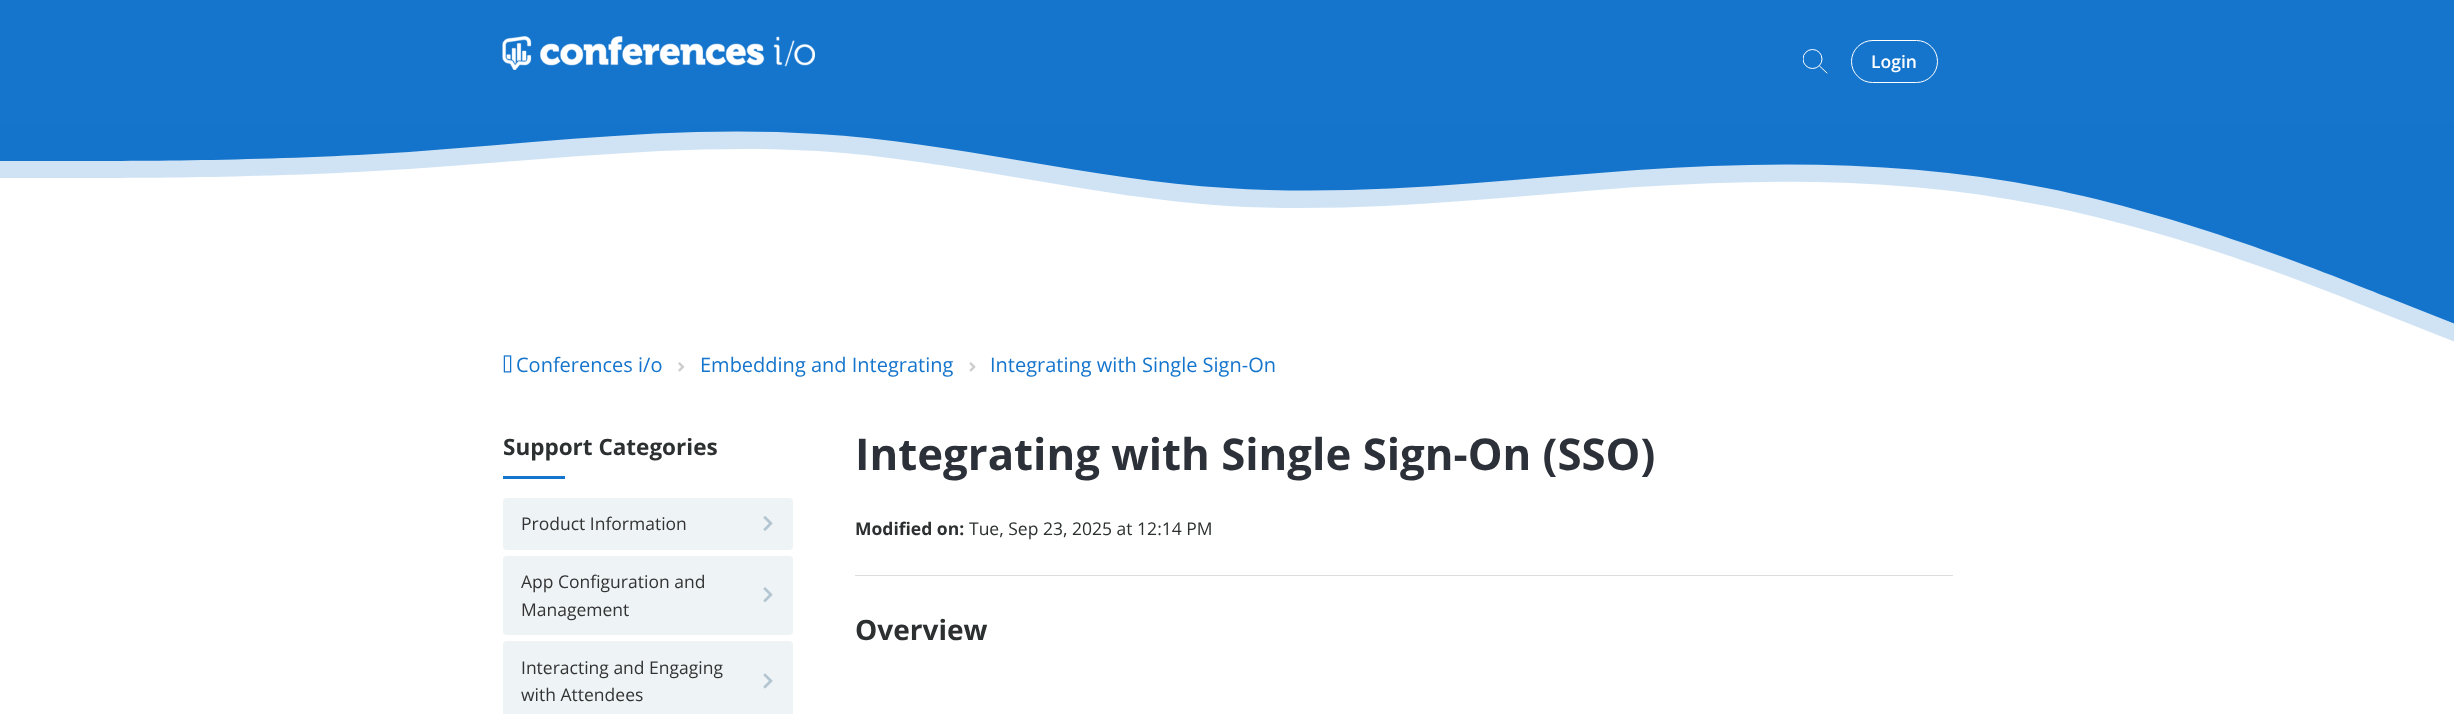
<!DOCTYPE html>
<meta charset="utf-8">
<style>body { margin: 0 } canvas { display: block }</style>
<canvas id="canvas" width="2454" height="714"></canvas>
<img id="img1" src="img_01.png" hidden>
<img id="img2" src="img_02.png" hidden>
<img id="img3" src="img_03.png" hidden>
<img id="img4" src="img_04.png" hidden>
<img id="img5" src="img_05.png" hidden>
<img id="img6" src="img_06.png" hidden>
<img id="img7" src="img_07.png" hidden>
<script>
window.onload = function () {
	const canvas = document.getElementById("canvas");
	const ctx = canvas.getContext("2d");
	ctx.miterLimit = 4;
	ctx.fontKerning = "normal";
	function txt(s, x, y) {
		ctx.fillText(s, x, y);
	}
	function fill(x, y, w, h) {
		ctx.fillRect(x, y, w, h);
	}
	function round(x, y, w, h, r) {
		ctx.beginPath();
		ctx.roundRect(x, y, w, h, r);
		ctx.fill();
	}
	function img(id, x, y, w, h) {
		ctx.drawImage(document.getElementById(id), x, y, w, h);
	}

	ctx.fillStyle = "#FFFFFF";
	fill(0, 0, 2454, 714);
	ctx.fillStyle = "#1575CC";
	fill(0, 0, 2454, 106);
	img("img1", 502, 36, 313, 34);
	ctx.save();
	ctx.beginPath();
	ctx.rect(1803, 49, 25, 25);
	ctx.clip();
	ctx.beginPath();
	ctx.arc(1812.5, 59, 9.5, 0, Math.PI * 2);
	ctx.strokeStyle = "#FFFFFF";
	ctx.stroke();
	ctx.restore();
	ctx.beginPath();
	ctx.moveTo(1827, 73);
	ctx.lineTo(1819.5, 66);
	ctx.strokeStyle = "#FFFFFF";
	ctx.lineCap = "round";
	ctx.lineJoin = "round";
	ctx.stroke();
	ctx.beginPath();
	ctx.roundRect(1851.5, 40.5, 86, 42, 21);
	ctx.lineJoin = "miter";
	ctx.stroke();
	ctx.beginPath();
	ctx.moveTo(0, 161);
	ctx.lineTo(68, 161);
	ctx.bezierCurveTo(136, 161, 273, 161, 409, 152);
	ctx.bezierCurveTo(546, 142, 682, 125, 818, 134);
	ctx.bezierCurveTo(955, 142, 1091, 180, 1227, 188);
	ctx.bezierCurveTo(1364, 197, 1500, 180, 1637, 170);
	ctx.bezierCurveTo(1773, 161, 1909, 161, 2046, 188);
	ctx.bezierCurveTo(2182, 215, 2319, 270, 2387, 297);
	ctx.lineTo(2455, 324);
	ctx.lineTo(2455, 106);
	ctx.lineTo(0, 106);
	ctx.closePath();
	ctx.fill();
	ctx.fillStyle = "rgba(21, 117, 204, 0.2)";
	ctx.beginPath();
	ctx.moveTo(0, 178);
	ctx.lineTo(68, 178);
	ctx.bezierCurveTo(136, 178, 273, 178, 409, 169);
	ctx.bezierCurveTo(546, 160, 682, 143, 818, 151);
	ctx.bezierCurveTo(955, 160, 1091, 197, 1227, 206);
	ctx.bezierCurveTo(1364, 214, 1500, 197, 1637, 187);
	ctx.bezierCurveTo(1773, 178, 1909, 178, 2046, 206);
	ctx.bezierCurveTo(2182, 233, 2319, 287, 2387, 315);
	ctx.lineTo(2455, 342);
	ctx.lineTo(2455, 124);
	ctx.lineTo(0, 124);
	ctx.closePath();
	ctx.fill();
	img("img2", 503, 355, 9, 18);
	img("img3", 678, 362, 7, 10);
	img("img4", 969, 362, 7, 10);
	ctx.fillStyle = "#1575CC";
	fill(503, 476, 62, 3);
	ctx.fillStyle = "#EEF3F6";
	round(503, 498, 290, 52, 4);
	img("img5", 763, 516, 10, 15);
	round(503, 556, 290, 79, 4);
	img("img6", 763, 587, 10, 15);
	round(503, 641, 290, 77, 4);
	img("img7", 763, 673, 10, 16);
	ctx.fillStyle = "#DDDDDD";
	fill(855, 575, 1098, 1);
	ctx.font = "600 17.5px Open Sans";
	ctx.fillStyle = "#FFFFFF";
	txt("Login", 1871, 68);
	ctx.font = "20px Open Sans";
	ctx.fillStyle = "#1575CC";
	txt("Conferences i/o", 516, 372);
	txt("Embedding and Integrating", 700, 372);
	txt("Integrating with Single Sign-On", 990, 372);
	ctx.font = "bold 22.5px Open Sans";
	ctx.fillStyle = "#2C3030";
	txt("Support Categories", 503, 455);
	ctx.font = "17.5px Open Sans";
	ctx.fillStyle = "#333333";
	txt("Product Information", 521, 530);
	txt("App Configuration and", 521, 588);
	txt("Management", 521, 616);
	txt("Interacting and Engaging", 521, 674);
	txt("with Attendees", 521, 701);
	ctx.font = "bold 43.75px Open Sans";
	ctx.fillStyle = "#2C3038";
	txt("Integrating with Single Sign-On (SSO)", 855, 470);
	ctx.font = "bold 17.5px Open Sans";
	ctx.fillStyle = "#2C3030";
	txt("Modified on:", 855, 535);
	ctx.font = "17.5px Open Sans";
	txt("Tue, Sep 23, 2025 at 12:14 PM", 969, 535);
	ctx.font = "bold 28px Open Sans";
	txt("Overview", 855, 640);
};
</script>
